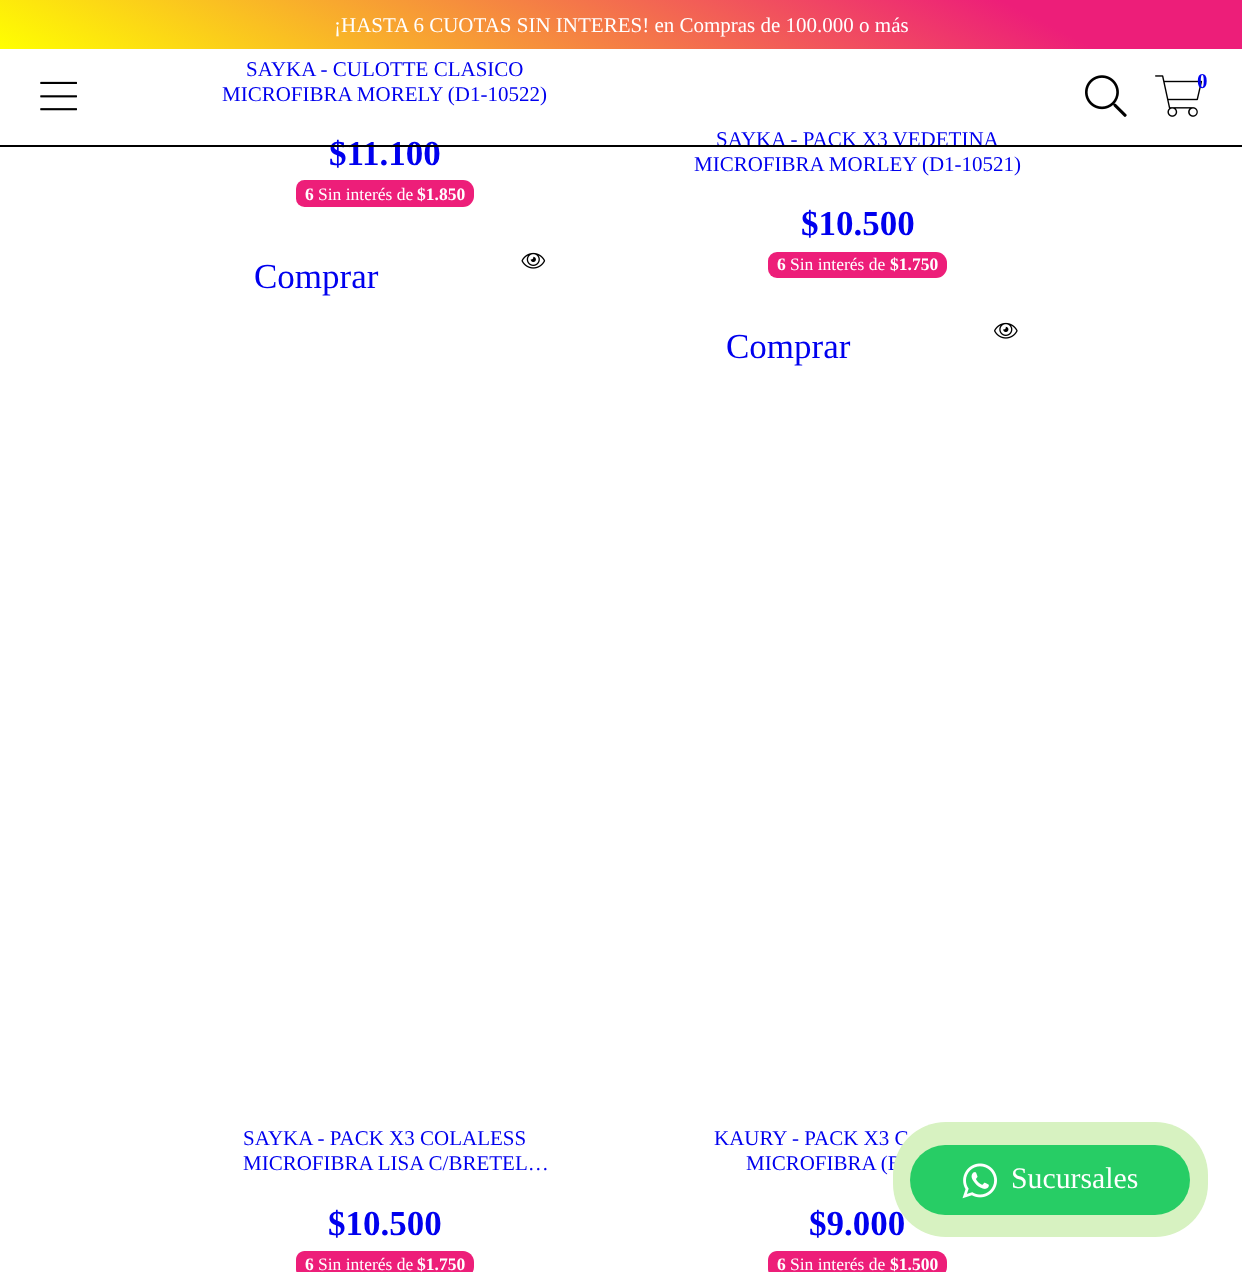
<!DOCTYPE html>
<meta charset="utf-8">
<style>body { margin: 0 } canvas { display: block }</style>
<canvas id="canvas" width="1242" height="1272"></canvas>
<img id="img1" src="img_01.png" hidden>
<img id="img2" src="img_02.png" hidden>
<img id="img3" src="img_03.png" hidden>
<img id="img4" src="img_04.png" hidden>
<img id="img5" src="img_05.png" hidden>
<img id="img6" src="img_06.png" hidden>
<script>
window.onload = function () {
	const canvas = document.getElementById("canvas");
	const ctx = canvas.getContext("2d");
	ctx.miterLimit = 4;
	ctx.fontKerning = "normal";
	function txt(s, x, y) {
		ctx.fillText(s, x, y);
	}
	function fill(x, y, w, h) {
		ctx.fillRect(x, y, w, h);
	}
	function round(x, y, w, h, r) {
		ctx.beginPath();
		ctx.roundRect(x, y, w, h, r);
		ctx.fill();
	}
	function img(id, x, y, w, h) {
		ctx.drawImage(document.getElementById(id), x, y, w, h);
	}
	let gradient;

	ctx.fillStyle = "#FFFFFF";
	fill(0, 0, 1242, 1272);
	gradient = ctx.createLinearGradient(483, 295, 759, -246);
	gradient.addColorStop(0, "#FFFF00");
	gradient.addColorStop(0.82, "#ED1E79");
	ctx.fillStyle = gradient;
	fill(0, 0, 1242, 49);
	img("img1", 40, 81, 37, 30);
	img("img2", 1085, 75, 42, 42);
	img("img3", 1155, 75, 48, 42);
	ctx.fillStyle = "#ED1E79";
	ctx.beginPath();
	ctx.roundRect(296, 180, 17, 27, [8.5, 0, 0, 8.5]);
	ctx.fill();
	fill(313, 180, 104, 27);
	ctx.beginPath();
	ctx.roundRect(417, 180, 57, 27, [0, 11, 11, 0]);
	ctx.fill();
	img("img4", 521, 252, 25, 17);
	ctx.beginPath();
	ctx.roundRect(768, 252, 18, 26, [9, 0, 0, 9]);
	ctx.fill();
	fill(786, 252, 103, 26);
	ctx.beginPath();
	ctx.roundRect(889, 252, 58, 26, [0, 11, 11, 0]);
	ctx.fill();
	img("img5", 994, 322, 24, 17);
	ctx.beginPath();
	ctx.moveTo(304.5, 1251);
	ctx.lineTo(313, 1251);
	ctx.lineTo(313, 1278);
	ctx.lineTo(304.5, 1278);
	ctx.bezierCurveTo(300, 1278, 296, 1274, 296, 1269.5);
	ctx.lineTo(296, 1259.5);
	ctx.bezierCurveTo(296, 1255, 300, 1251, 304.5, 1251);
	ctx.closePath();
	ctx.fill();
	fill(313, 1251, 104, 21);
	ctx.beginPath();
	ctx.moveTo(417, 1251);
	ctx.lineTo(463, 1251);
	ctx.bezierCurveTo(469, 1251, 474, 1256, 474, 1262);
	ctx.lineTo(474, 1267);
	ctx.bezierCurveTo(474, 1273, 469, 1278, 463, 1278);
	ctx.lineTo(417, 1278);
	ctx.closePath();
	ctx.fill();
	ctx.beginPath();
	ctx.moveTo(777, 1251);
	ctx.lineTo(786, 1251);
	ctx.lineTo(786, 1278);
	ctx.lineTo(777, 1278);
	ctx.bezierCurveTo(772, 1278, 768, 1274, 768, 1269);
	ctx.lineTo(768, 1260);
	ctx.bezierCurveTo(768, 1255, 772, 1251, 777, 1251);
	ctx.closePath();
	ctx.fill();
	fill(786, 1251, 103, 21);
	ctx.beginPath();
	ctx.moveTo(889, 1251);
	ctx.lineTo(936, 1251);
	ctx.bezierCurveTo(942, 1251, 947, 1256, 947, 1262);
	ctx.lineTo(947, 1267);
	ctx.bezierCurveTo(947, 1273, 942, 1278, 936, 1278);
	ctx.lineTo(889, 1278);
	ctx.closePath();
	ctx.fill();
	ctx.font = "21px Liberation Serif";
	ctx.fillStyle = "#FFFFFF";
	txt("¡HASTA 6 CUOTAS SIN INTERES! en Compras de 100.000 o más", 334, 32);
	ctx.font = "bold 21px Liberation Serif";
	ctx.fillStyle = "#0000EE";
	txt("0", 1197, 88);
	ctx.font = "21px Liberation Serif";
	txt("SAYKA - CULOTTE CLASICO", 246, 76);
	txt("MICROFIBRA MORELY (D1-10522)", 222, 101);
	ctx.font = "bold 35px Liberation Serif";
	txt("$11.100", 329, 165);
	ctx.font = "bold 17.5px Liberation Serif";
	ctx.fillStyle = "#FFFFFF";
	txt("6", 305, 200);
	ctx.font = "17.5px Liberation Serif";
	txt("Sin interés de", 318, 200);
	ctx.font = "bold 17.5px Liberation Serif";
	txt("$1.850", 417, 200);
	ctx.font = "35px Liberation Serif";
	ctx.fillStyle = "#0000EE";
	txt("Comprar", 254, 288);
	ctx.font = "21px Liberation Serif";
	txt("SAYKA - PACK X3 VEDETINA", 716, 146);
	ctx.fillStyle = "#000000";
	fill(0, 145, 1242, 2);
	ctx.fillStyle = "#0000EE";
	txt("MICROFIBRA MORLEY (D1-10521)", 694, 171);
	ctx.font = "bold 35px Liberation Serif";
	txt("$10.500", 801, 235);
	ctx.font = "bold 17.5px Liberation Serif";
	ctx.fillStyle = "#FFFFFF";
	txt("6", 777, 270);
	ctx.font = "17.5px Liberation Serif";
	txt("Sin interés de", 790, 270);
	ctx.font = "bold 17.5px Liberation Serif";
	txt("$1.750", 890, 270);
	ctx.font = "35px Liberation Serif";
	ctx.fillStyle = "#0000EE";
	txt("Comprar", 726, 358);
	ctx.font = "21px Liberation Serif";
	txt("SAYKA - PACK X3 COLALESS", 243, 1145);
	txt("MICROFIBRA LISA C/BRETEL…", 243, 1170);
	ctx.font = "bold 35px Liberation Serif";
	txt("$10.500", 328, 1235);
	ctx.font = "bold 17.5px Liberation Serif";
	ctx.fillStyle = "#FFFFFF";
	txt("6", 305, 1270);
	ctx.font = "17.5px Liberation Serif";
	txt("Sin interés de", 318, 1270);
	ctx.font = "bold 17.5px Liberation Serif";
	txt("$1.750", 417, 1270);
	ctx.font = "21px Liberation Serif";
	ctx.fillStyle = "#0000EE";
	txt("KAURY - PACK X3 C", 714, 1145);
	txt("MICROFIBRA (B", 746, 1170);
	ctx.font = "bold 35px Liberation Serif";
	txt("$9.000", 809, 1235);
	ctx.font = "bold 17.5px Liberation Serif";
	ctx.fillStyle = "#FFFFFF";
	txt("6", 777, 1270);
	ctx.font = "17.5px Liberation Serif";
	txt("Sin interés de", 790, 1270);
	ctx.font = "bold 17.5px Liberation Serif";
	txt("$1.500", 890, 1270);
	ctx.fillStyle = "#D7F2C1";
	round(893, 1122, 315, 115, 53);
	ctx.fillStyle = "#27CD65";
	round(910, 1145, 280, 70, 35);
	img("img6", 962, 1163, 35, 36);
	ctx.font = "29.75px Liberation Serif";
	ctx.fillStyle = "#FFFFFF";
	txt("Sucursales", 1011, 1188);
};
</script>
